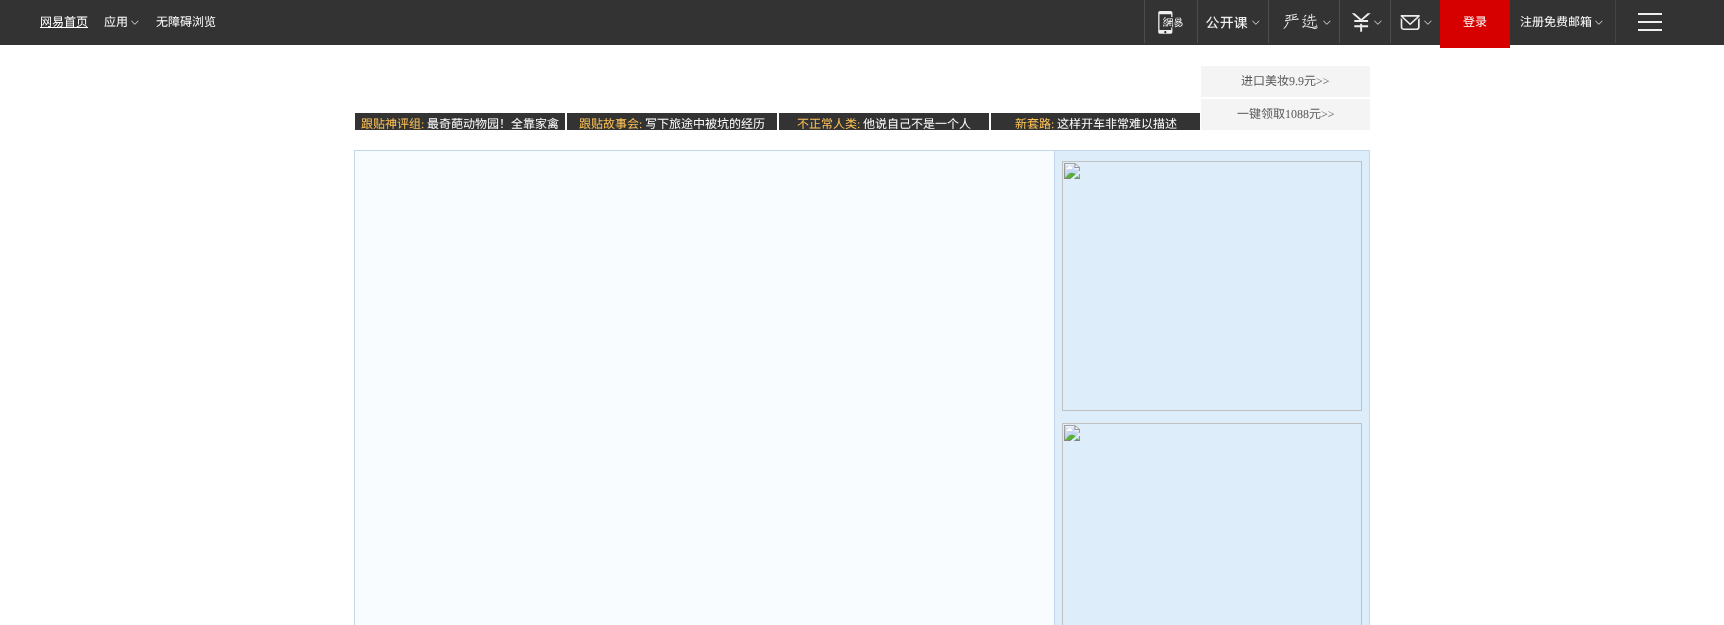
<!DOCTYPE html>
<meta charset="utf-8">
<style>body { margin: 0 } canvas { display: block }</style>
<canvas id="canvas" width="1724" height="625"></canvas>
<img id="img1" src="img_01.png" hidden>
<img id="img2" src="img_02.png" hidden>
<img id="img3" src="img_03.png" hidden>
<img id="img4" src="img_04.png" hidden>
<img id="img5" src="img_05.png" hidden>
<img id="img6" src="img_06.png" hidden>
<img id="img7" src="img_07.png" hidden>
<img id="img8" src="img_08.png" hidden>
<img id="img9" src="img_09.png" hidden>
<script>
window.onload = function () {
	const canvas = document.getElementById("canvas");
	const ctx = canvas.getContext("2d");
	ctx.miterLimit = 4;
	ctx.fontKerning = "normal";
	function txt(s, x, y) {
		ctx.fillText(s, x, y);
	}
	function fill(x, y, w, h) {
		ctx.fillRect(x, y, w, h);
	}
	function img(id, x, y, w, h) {
		ctx.drawImage(document.getElementById(id), x, y, w, h);
	}

	ctx.fillStyle = "#FFFFFF";
	fill(0, 0, 1724, 625);
	ctx.fillStyle = "#333333";
	fill(0, 0, 1724, 45);
	ctx.fillStyle = "#FFFFFF";
	fill(40, 27, 48, 1);
	img("img1", 131, 20, 8, 5);
	ctx.fillStyle = "#4D4D4D";
	fill(1144, 0, 1, 43);
	img("img2", 1158, 11, 25, 23);
	fill(1197, 0, 1, 43);
	img("img3", 1206, 16, 42, 13);
	img("img1", 1252, 20, 8, 5);
	fill(1268, 0, 1, 43);
	img("img4", 1283, 13, 35, 16);
	img("img1", 1323, 20, 8, 5);
	fill(1339, 0, 1, 43);
	img("img5", 1351, 13, 20, 19);
	img("img1", 1374, 20, 8, 5);
	fill(1390, 0, 1, 43);
	img("img6", 1400, 15, 20, 15);
	img("img1", 1424, 20, 8, 5);
	ctx.fillStyle = "#D60000";
	fill(1440, 0, 70, 48);
	img("img1", 1595, 20, 8, 5);
	ctx.fillStyle = "#444444";
	fill(1615, 0, 1, 43);
	ctx.fillStyle = "#EFEFEF";
	fill(1638, 13, 24, 2);
	fill(1638, 21, 24, 2);
	fill(1638, 29, 24, 2);
	ctx.fillStyle = "#F4F4F4";
	fill(1201, 66, 169, 31);
	fill(1201, 99, 169, 31);
	ctx.fillStyle = "#333333";
	fill(355, 113, 210, 17);
	fill(567, 113, 210, 17);
	fill(779, 113, 210, 17);
	fill(991, 113, 209, 17);
	img("img7", 354, 151, 1016, 474);
	ctx.fillStyle = "#C4D6EC";
	fill(354, 150, 1016, 1);
	img("img8", 1062, 161, 300, 250);
	img("img9", 1062, 423, 300, 202);
	ctx.font = "12px Noto Sans CJK SC";
	ctx.fillStyle = "#FFFFFF";
	txt("网易首页", 40, 26);
	txt("应用", 104, 26);
	txt("无障碍浏览", 156, 26);
	txt("登录", 1463, 26);
	txt("注册免费邮箱", 1520, 26);
	ctx.fillStyle = "#585858";
	txt("进口美妆", 1241, 85);
	ctx.font = "12px Liberation Serif";
	txt("9.9", 1289, 85);
	ctx.font = "12px Noto Sans CJK SC";
	txt("元", 1304, 85);
	ctx.font = "12px Liberation Serif";
	txt(">>", 1316, 85);
	ctx.font = "12px Noto Sans CJK SC";
	txt("一键领取", 1237, 118);
	ctx.font = "12px Liberation Serif";
	txt("1088", 1285, 118);
	ctx.font = "12px Noto Sans CJK SC";
	txt("元", 1309, 118);
	ctx.font = "12px Liberation Serif";
	txt(">>", 1321, 118);
	ctx.font = "12px Noto Sans CJK SC";
	ctx.fillStyle = "#FDC255";
	txt("跟贴神评组", 361, 128);
	ctx.font = "12px Liberation Serif";
	txt(":", 421, 128);
	ctx.font = "12px Noto Sans CJK SC";
	ctx.fillStyle = "#FFFFFF";
	txt("最奇葩动物园！全靠家禽", 427, 128);
	ctx.fillStyle = "#FDC255";
	txt("跟贴故事会", 579, 128);
	ctx.font = "12px Liberation Serif";
	txt(":", 639, 128);
	ctx.font = "12px Noto Sans CJK SC";
	ctx.fillStyle = "#FFFFFF";
	txt("写下旅途中被坑的经历", 645, 128);
	ctx.fillStyle = "#FDC255";
	txt("不正常人类", 797, 128);
	ctx.font = "12px Liberation Serif";
	txt(":", 857, 128);
	ctx.font = "12px Noto Sans CJK SC";
	ctx.fillStyle = "#FFFFFF";
	txt("他说自己不是一个人", 863, 128);
	ctx.fillStyle = "#FDC255";
	txt("新套路", 1015, 128);
	ctx.font = "12px Liberation Serif";
	txt(":", 1051, 128);
	ctx.font = "12px Noto Sans CJK SC";
	ctx.fillStyle = "#FFFFFF";
	txt("这样开车非常难以描述", 1057, 128);
};
</script>
